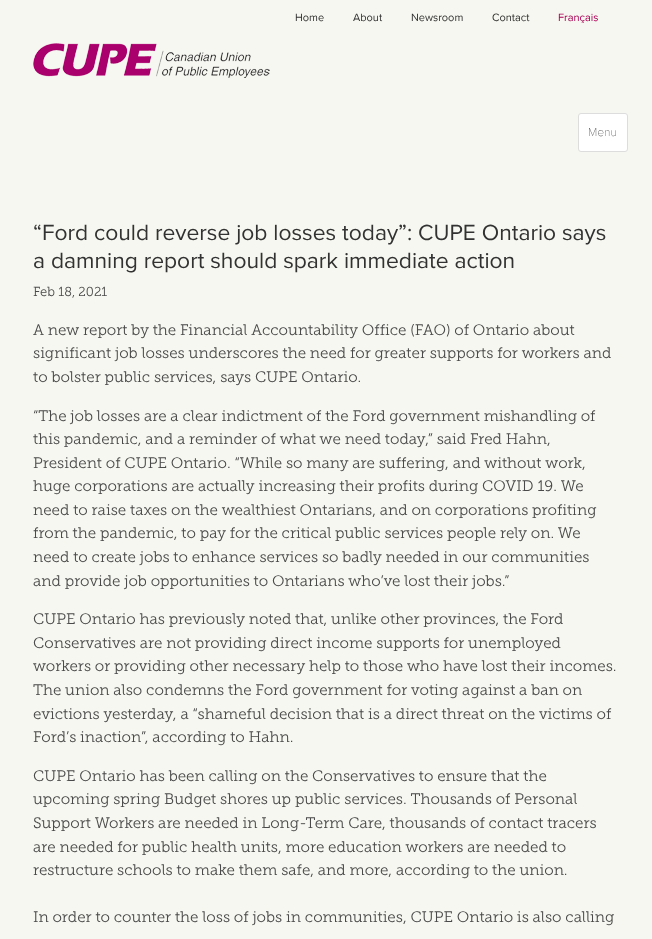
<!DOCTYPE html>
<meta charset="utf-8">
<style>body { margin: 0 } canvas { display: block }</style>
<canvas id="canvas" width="652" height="939"></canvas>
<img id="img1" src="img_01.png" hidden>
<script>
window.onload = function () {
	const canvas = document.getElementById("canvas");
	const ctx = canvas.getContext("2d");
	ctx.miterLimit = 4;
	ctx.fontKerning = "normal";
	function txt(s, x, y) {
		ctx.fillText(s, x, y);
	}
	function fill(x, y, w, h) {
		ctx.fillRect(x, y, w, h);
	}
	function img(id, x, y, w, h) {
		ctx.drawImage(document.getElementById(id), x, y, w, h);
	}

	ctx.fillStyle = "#F6F7F0";
	fill(0, 0, 652, 939);
	img("img1", 33, 43, 237, 35);
	ctx.fillStyle = "#FFFFFF";
	ctx.beginPath();
	ctx.roundRect(578.5, 113.5, 49, 38, 2.5);
	ctx.fill();
	ctx.strokeStyle = "#DDDDDD";
	ctx.stroke();
	ctx.font = "11px Proxima Nova";
	ctx.fillStyle = "#323232";
	txt("Home", 295, 21);
	txt("About", 353, 21);
	txt("Newsroom", 411, 21);
	txt("Contact", 492, 21);
	ctx.fillStyle = "#AA0056";
	txt("Français", 558, 21);
	ctx.font = "100 12px Proxima Nova";
	ctx.fillStyle = "#4A4A4A";
	txt("Menu", 588, 136);
	ctx.font = "22.8px Proxima Nova";
	ctx.fillStyle = "#323232";
	txt("“Ford could reverse job losses today”: CUPE Ontario says", 33, 240);
	txt("a damning report should spark immediate action", 33, 268);
	ctx.font = "300 13px 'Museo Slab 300'";
	ctx.fillStyle = "#4A4A4A";
	txt("Feb 18, 2021", 33, 296);
	ctx.font = "300 15.2px 'Museo Slab 300'";
	txt("A new report by the Financial Accountability Office (FAO) of Ontario about", 33, 335);
	txt("significant job losses underscores the need for greater supports for workers and", 33, 358);
	txt("to bolster public services, says CUPE Ontario.", 33, 382);
	txt("“The job losses are a clear indictment of the Ford government mishandling of", 33, 421);
	txt("this pandemic, and a reminder of what we need today,” said Fred Hahn,", 33, 444);
	txt("President of CUPE Ontario. “While so many are suffering, and without work,", 33, 468);
	txt("huge corporations are actually increasing their profits during COVID 19. We", 33, 491);
	txt("need to raise taxes on the wealthiest Ontarians, and on corporations profiting", 33, 515);
	txt("from the pandemic, to pay for the critical public services people rely on. We", 33, 538);
	txt("need to create jobs to enhance services so badly needed in our communities", 33, 562);
	txt("and provide job opportunities to Ontarians who’ve lost their jobs.”", 33, 586);
	txt("CUPE Ontario has previously noted that, unlike other provinces, the Ford", 33, 624);
	txt("Conservatives are not providing direct income supports for unemployed", 33, 648);
	txt("workers or providing other necessary help to those who have lost their incomes.", 33, 671);
	txt("The union also condemns the Ford government for voting against a ban on", 33, 695);
	txt("evictions yesterday, a “shameful decision that is a direct threat on the victims of", 33, 719);
	txt("Ford’s inaction”, according to Hahn.", 33, 742);
	txt("CUPE Ontario has been calling on the Conservatives to ensure that the", 33, 781);
	txt("upcoming spring Budget shores up public services. Thousands of Personal", 33, 804);
	txt("Support Workers are needed in Long-Term Care, thousands of contact tracers", 33, 828);
	txt("are needed for public health units, more education workers are needed to", 33, 852);
	txt("restructure schools to make them safe, and more, according to the union.", 33, 875);
	txt("In order to counter the loss of jobs in communities, CUPE Ontario is also calling", 33, 922);
};
</script>
